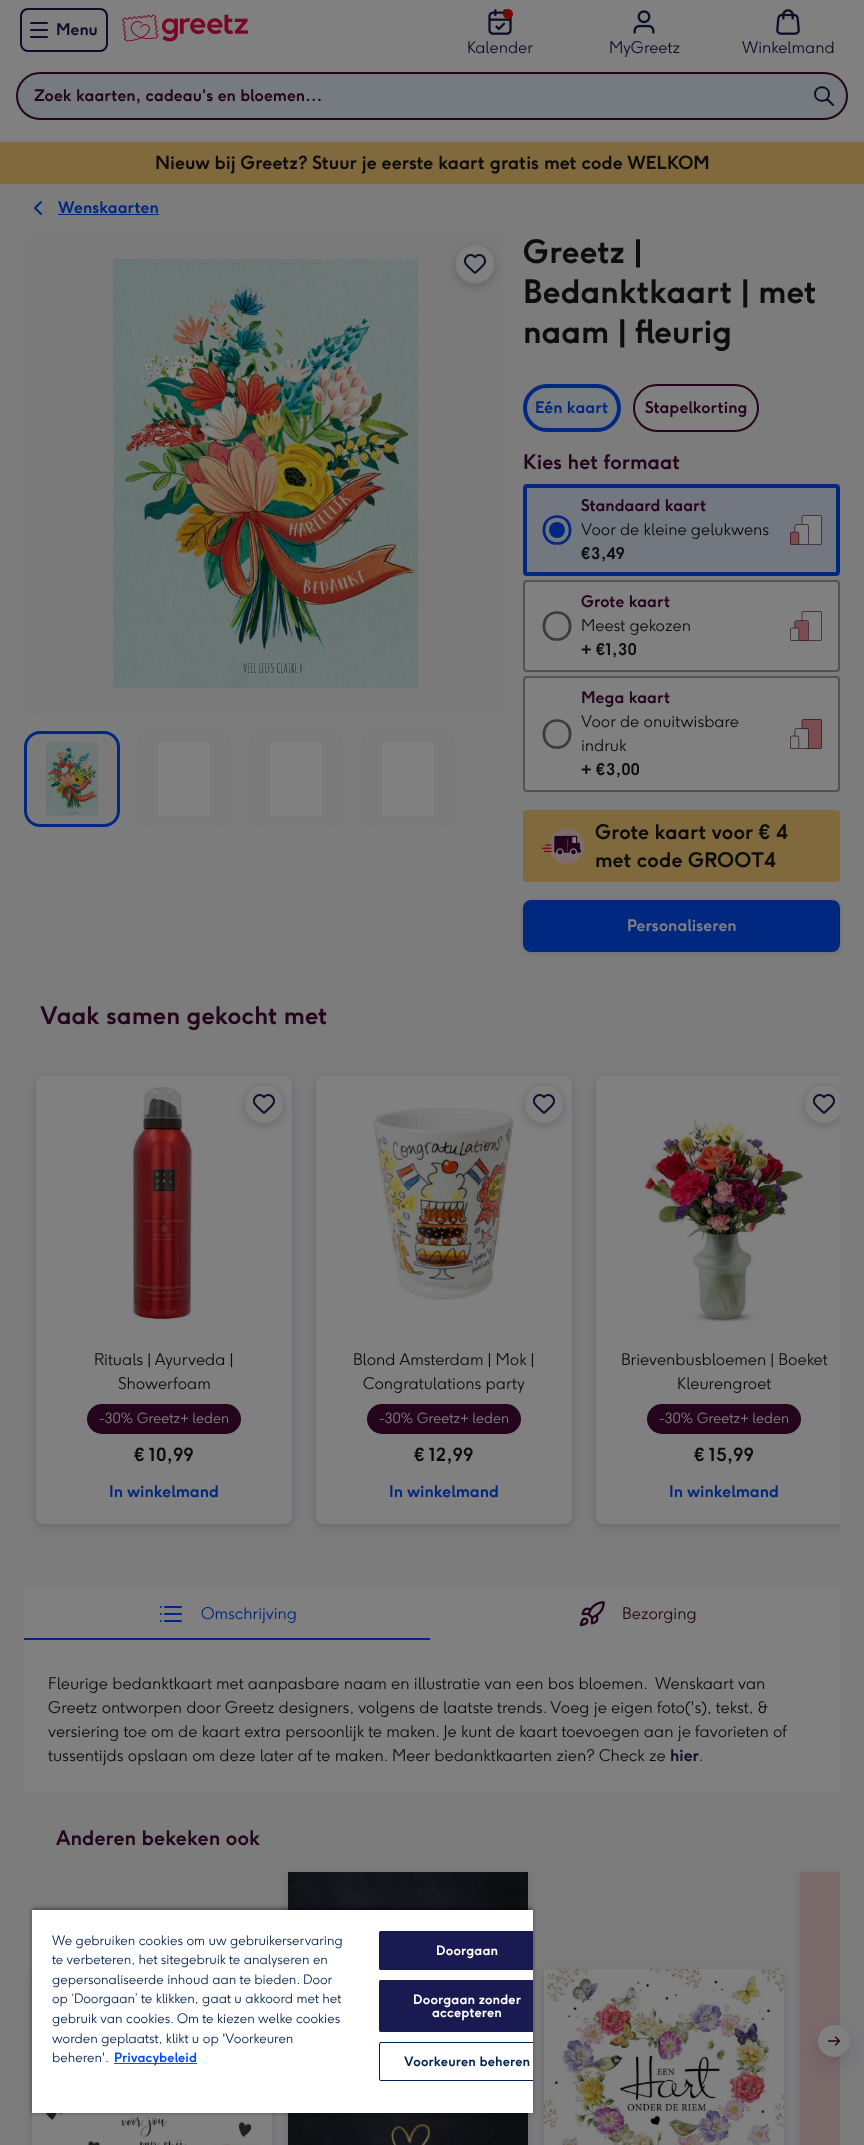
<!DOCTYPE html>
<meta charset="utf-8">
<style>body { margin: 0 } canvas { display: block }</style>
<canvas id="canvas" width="864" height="2145"></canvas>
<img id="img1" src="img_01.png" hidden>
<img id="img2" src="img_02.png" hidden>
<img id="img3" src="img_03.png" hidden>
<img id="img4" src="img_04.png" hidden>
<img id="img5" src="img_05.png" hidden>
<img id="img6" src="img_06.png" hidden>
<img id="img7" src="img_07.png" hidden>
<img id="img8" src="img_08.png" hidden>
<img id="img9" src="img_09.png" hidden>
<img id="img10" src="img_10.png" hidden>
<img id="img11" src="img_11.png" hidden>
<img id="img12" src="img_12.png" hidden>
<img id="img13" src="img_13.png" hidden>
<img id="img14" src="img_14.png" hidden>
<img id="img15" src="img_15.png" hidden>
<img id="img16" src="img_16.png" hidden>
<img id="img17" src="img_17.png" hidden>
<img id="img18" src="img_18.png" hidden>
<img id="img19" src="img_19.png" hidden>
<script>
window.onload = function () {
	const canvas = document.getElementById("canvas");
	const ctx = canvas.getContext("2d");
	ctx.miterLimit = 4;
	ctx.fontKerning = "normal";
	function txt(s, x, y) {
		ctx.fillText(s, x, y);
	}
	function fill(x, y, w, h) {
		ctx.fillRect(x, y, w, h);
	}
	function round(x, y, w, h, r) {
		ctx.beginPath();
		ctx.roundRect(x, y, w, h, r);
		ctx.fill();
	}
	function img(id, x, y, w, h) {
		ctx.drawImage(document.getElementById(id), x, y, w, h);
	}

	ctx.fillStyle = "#7C7C7D";
	fill(0, 0, 864, 2145);
	ctx.fillStyle = "#808080";
	fill(0, 0, 864, 140);
	ctx.beginPath();
	ctx.roundRect(21, 9, 86, 42, 7);
	ctx.strokeStyle = "#0D0D29";
	ctx.lineWidth = 2;
	ctx.stroke();
	ctx.fillStyle = "#0D0D29";
	round(30, 22, 18, 2, 1);
	round(30, 29, 18, 2, 1);
	round(30, 36, 18, 2, 1);
	img("img1", 122, 14, 126, 28);
	img("img2", 488, 9, 24, 26);
	ctx.fillStyle = "#760800";
	ctx.beginPath();
	ctx.arc(508, 14, 5, 0, Math.PI * 2);
	ctx.fill();
	img("img3", 633, 10, 22, 24);
	img("img4", 776, 9, 24, 26);
	ctx.fillStyle = "#767B7F";
	ctx.beginPath();
	ctx.roundRect(17, 73, 830, 46, 23);
	ctx.fill();
	ctx.strokeStyle = "#24051D";
	ctx.stroke();
	ctx.beginPath();
	ctx.moveTo(833, 105);
	ctx.lineTo(827, 99);
	ctx.moveTo(829, 94);
	ctx.bezierCurveTo(829, 103, 815, 103, 815, 94);
	ctx.bezierCurveTo(815, 85, 829, 85, 829, 94);
	ctx.strokeStyle = "#0D0D29";
	ctx.lineCap = "round";
	ctx.lineJoin = "round";
	ctx.stroke();
	ctx.fillStyle = "#7F693D";
	fill(0, 142, 864, 42);
	ctx.beginPath();
	ctx.moveTo(41, 214);
	ctx.lineTo(35, 208);
	ctx.lineTo(41, 202);
	ctx.strokeStyle = "#002880";
	ctx.stroke();
	ctx.fillStyle = "#002880";
	fill(58, 214, 101, 1);
	ctx.fillStyle = "#7A7A7A";
	round(24, 232, 483, 483, 16);
	img("img5", 113, 259, 305, 429);
	ctx.fillStyle = "rgba(0, 2, 39, 0.15)";
	ctx.filter = "blur(4px)";
	ctx.beginPath();
	ctx.roundRect(455, 247, 40, 40, 20);
	ctx.fill();
	ctx.filter = "none";
	ctx.fillStyle = "#808080";
	ctx.beginPath();
	ctx.arc(475, 264, 19.5, 0, Math.PI * 2);
	ctx.fill();
	ctx.strokeStyle = "#747474";
	ctx.lineWidth = 1;
	ctx.stroke();
	img("img6", 464, 254, 22, 20);
	ctx.fillStyle = "#7A7A7A";
	ctx.beginPath();
	ctx.roundRect(25.5, 732.5, 93, 93, 14.5);
	ctx.fill();
	ctx.strokeStyle = "#002880";
	ctx.lineWidth = 3;
	ctx.lineJoin = "miter";
	ctx.stroke();
	img("img7", 46, 742, 52, 74);
	round(136, 731, 96, 96, 16);
	ctx.fillStyle = "#808080";
	fill(158, 742, 52, 74);
	ctx.fillStyle = "#7A7A7A";
	round(248, 731, 96, 96, 16);
	ctx.fillStyle = "#808080";
	fill(270, 742, 52, 74);
	ctx.fillStyle = "#7A7A7A";
	round(360, 731, 96, 96, 16);
	ctx.fillStyle = "#808080";
	fill(382, 742, 52, 74);
	ctx.fillStyle = "#767B7F";
	ctx.beginPath();
	ctx.roundRect(525, 386, 94, 44, 22);
	ctx.fill();
	ctx.lineWidth = 4;
	ctx.stroke();
	ctx.fillStyle = "#808080";
	ctx.beginPath();
	ctx.roundRect(634, 385, 124, 46, 23);
	ctx.fill();
	ctx.strokeStyle = "#24051D";
	ctx.lineWidth = 2;
	ctx.stroke();
	ctx.fillStyle = "#737780";
	ctx.beginPath();
	ctx.roundRect(525, 486, 313, 88, 2);
	ctx.fill();
	ctx.strokeStyle = "#002880";
	ctx.lineWidth = 4;
	ctx.stroke();
	ctx.beginPath();
	ctx.moveTo(557, 543.5);
	ctx.bezierCurveTo(574.5, 543.5, 574.5, 516.5, 557, 516.5);
	ctx.bezierCurveTo(539.5, 516.5, 539.5, 543.5, 557, 543.5);
	ctx.lineWidth = 2.7;
	ctx.lineJoin = "round";
	ctx.stroke();
	ctx.fillStyle = "#002880";
	ctx.beginPath();
	ctx.moveTo(557, 538);
	ctx.bezierCurveTo(567.5, 538, 567.5, 522, 557, 522);
	ctx.bezierCurveTo(546.5, 522, 546.5, 538, 557, 538);
	ctx.fill();
	img("img8", 790, 515, 32, 30);
	ctx.fillStyle = "#808080";
	ctx.beginPath();
	ctx.roundRect(524, 581, 315, 90, 3);
	ctx.fill();
	ctx.strokeStyle = "#525252";
	ctx.lineWidth = 2;
	ctx.lineJoin = "miter";
	ctx.stroke();
	ctx.beginPath();
	ctx.moveTo(557, 639.5);
	ctx.bezierCurveTo(574.5, 639.5, 574.5, 612.5, 557, 612.5);
	ctx.bezierCurveTo(539.5, 612.5, 539.5, 639.5, 557, 639.5);
	ctx.strokeStyle = "#3B3B3B";
	ctx.lineWidth = 2.7;
	ctx.lineJoin = "round";
	ctx.stroke();
	img("img9", 790, 611, 32, 30);
	ctx.beginPath();
	ctx.roundRect(524, 677, 315, 114, 3);
	ctx.fill();
	ctx.strokeStyle = "#525252";
	ctx.lineWidth = 2;
	ctx.lineJoin = "miter";
	ctx.stroke();
	ctx.beginPath();
	ctx.moveTo(557, 747.5);
	ctx.bezierCurveTo(574.5, 747.5, 574.5, 720.5, 557, 720.5);
	ctx.bezierCurveTo(539.5, 720.5, 539.5, 747.5, 557, 747.5);
	ctx.strokeStyle = "#3B3B3B";
	ctx.lineWidth = 2.7;
	ctx.lineJoin = "round";
	ctx.stroke();
	img("img10", 790, 719, 32, 30);
	ctx.fillStyle = "#7F693D";
	round(523, 810, 317, 72, 4);
	img("img11", 541, 828, 44, 36);
	ctx.fillStyle = "rgba(0, 16, 39, 0.15)";
	ctx.filter = "blur(2px)";
	ctx.beginPath();
	ctx.roundRect(523, 901, 317, 52, 8);
	ctx.fill();
	ctx.filter = "none";
	ctx.fillStyle = "#002880";
	ctx.beginPath();
	ctx.roundRect(524, 901, 315, 50, 7);
	ctx.fill();
	ctx.strokeStyle = "#002880";
	ctx.lineWidth = 2;
	ctx.lineJoin = "miter";
	ctx.stroke();
	ctx.fillStyle = "rgba(0, 2, 39, 0.15)";
	ctx.filter = "blur(4px)";
	ctx.beginPath();
	ctx.roundRect(36, 1079, 256, 448, 8);
	ctx.fill();
	ctx.filter = "none";
	ctx.fillStyle = "#808080";
	round(36, 1076, 256, 448, 8);
	img("img12", 132, 1087, 61, 235);
	ctx.fillStyle = "rgba(0, 2, 39, 0.15)";
	ctx.filter = "blur(4px)";
	ctx.beginPath();
	ctx.roundRect(244, 1087, 40, 40, 20);
	ctx.fill();
	ctx.filter = "none";
	ctx.fillStyle = "#808080";
	ctx.beginPath();
	ctx.arc(264, 1104, 19.5, 0, Math.PI * 2);
	ctx.fill();
	ctx.strokeStyle = "#747474";
	ctx.lineWidth = 1;
	ctx.stroke();
	img("img6", 253, 1094, 22, 20);
	ctx.fillStyle = "#24051D";
	round(87, 1404, 154, 30, 15);
	ctx.fillStyle = "rgba(0, 2, 39, 0.15)";
	ctx.filter = "blur(4px)";
	ctx.beginPath();
	ctx.roundRect(316, 1079, 256, 448, 8);
	ctx.fill();
	ctx.filter = "none";
	ctx.fillStyle = "#808080";
	round(316, 1076, 256, 448, 8);
	img("img13", 373, 1108, 141, 192);
	ctx.fillStyle = "rgba(0, 2, 39, 0.15)";
	ctx.filter = "blur(4px)";
	ctx.beginPath();
	ctx.roundRect(524, 1087, 40, 40, 20);
	ctx.fill();
	ctx.filter = "none";
	ctx.fillStyle = "#808080";
	ctx.beginPath();
	ctx.arc(544, 1104, 19.5, 0, Math.PI * 2);
	ctx.fill();
	ctx.stroke();
	img("img6", 533, 1094, 22, 20);
	ctx.fillStyle = "#24051D";
	round(367, 1404, 154, 30, 15);
	ctx.save();
	ctx.beginPath();
	ctx.rect(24, 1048, 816, 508);
	ctx.clip();
	ctx.fillStyle = "rgba(0, 2, 39, 0.15)";
	ctx.filter = "blur(4px)";
	ctx.beginPath();
	ctx.roundRect(596, 1079, 256, 448, 8);
	ctx.fill();
	ctx.filter = "none";
	ctx.restore();
	ctx.fillStyle = "#808080";
	ctx.beginPath();
	ctx.roundRect(596, 1076, 244, 448, [8, 0, 0, 8]);
	ctx.fill();
	img("img14", 643, 1120, 161, 202);
	ctx.save();
	ctx.beginPath();
	ctx.rect(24, 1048, 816, 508);
	ctx.clip();
	ctx.fillStyle = "rgba(0, 2, 39, 0.15)";
	ctx.filter = "blur(4px)";
	ctx.beginPath();
	ctx.roundRect(804, 1087, 40, 40, 20);
	ctx.fill();
	ctx.filter = "none";
	ctx.restore();
	ctx.save();
	ctx.beginPath();
	ctx.rect(24, 1048, 816, 508);
	ctx.clip();
	ctx.beginPath();
	ctx.arc(824, 1104, 19.5, 0, Math.PI * 2);
	ctx.fill();
	ctx.stroke();
	ctx.restore();
	img("img6", 813, 1094, 22, 20);
	ctx.fillStyle = "#24051D";
	round(647, 1404, 154, 30, 15);
	ctx.fillStyle = "#808080";
	round(24, 1588, 816, 52, 8);
	ctx.fillStyle = "#747474";
	fill(430, 1639, 5, 1);
	ctx.fillStyle = "#808080";
	ctx.beginPath();
	ctx.roundRect(24, 1588, 406, 52, [8, 8, 0, 0]);
	ctx.fill();
	ctx.fillStyle = "#002880";
	fill(24, 1638, 406, 2);
	img("img15", 160, 1606, 22, 16);
	ctx.fillStyle = "#808080";
	ctx.beginPath();
	ctx.roundRect(435, 1588, 405, 52, [8, 8, 0, 0]);
	ctx.fill();
	img("img16", 579, 1601, 26, 26);
	fill(24, 1640, 816, 152);
	ctx.fillStyle = "rgba(0, 2, 39, 0.15)";
	ctx.filter = "blur(4px)";
	ctx.beginPath();
	ctx.rect(32, 1972, 240, 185);
	ctx.fill();
	ctx.filter = "none";
	img("img17", 32, 2113, 240, 32);
	ctx.filter = "blur(4px)";
	ctx.beginPath();
	ctx.rect(288, 1875, 240, 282);
	ctx.fill();
	ctx.filter = "none";
	img("img18", 288, 1872, 240, 273);
	ctx.filter = "blur(4px)";
	ctx.beginPath();
	ctx.rect(544, 1972, 240, 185);
	ctx.fill();
	ctx.filter = "none";
	img("img19", 544, 1969, 240, 176);
	ctx.save();
	ctx.beginPath();
	ctx.rect(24, 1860, 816, 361);
	ctx.clip();
	ctx.filter = "blur(4px)";
	ctx.beginPath();
	ctx.rect(800, 1875, 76, 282);
	ctx.fill();
	ctx.filter = "none";
	ctx.restore();
	ctx.fillStyle = "#7B6A6A";
	fill(800, 1872, 40, 273);
	ctx.fillStyle = "rgba(0, 16, 39, 0.15)";
	ctx.filter = "blur(9px)";
	ctx.beginPath();
	ctx.roundRect(818, 2033, 32, 32, 16);
	ctx.fill();
	ctx.filter = "none";
	ctx.fillStyle = "#808080";
	ctx.beginPath();
	ctx.arc(834, 2041, 16, 0, Math.PI * 2);
	ctx.fill();
	ctx.beginPath();
	ctx.moveTo(828.5, 2041);
	ctx.lineTo(839.5, 2041);
	ctx.moveTo(839.5, 2041);
	ctx.lineTo(835.5, 2037);
	ctx.moveTo(839.5, 2041);
	ctx.lineTo(835.5, 2045);
	ctx.strokeStyle = "#24051D";
	ctx.lineWidth = 1.3;
	ctx.lineJoin = "round";
	ctx.stroke();
	ctx.fillStyle = "rgba(0, 0, 0, 0.35)";
	ctx.filter = "blur(2px)";
	ctx.beginPath();
	ctx.rect(32, 1908, 501, 205);
	ctx.fill();
	ctx.filter = "none";
	ctx.save();
	ctx.beginPath();
	ctx.rect(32, 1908, 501, 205);
	ctx.clip();
	ctx.fillStyle = "rgba(0, 0, 0, 0.2)";
	ctx.filter = "blur(2px)";
	ctx.beginPath();
	ctx.rect(32, 1910, 501, 203);
	ctx.fill();
	ctx.filter = "none";
	ctx.restore();
	ctx.fillStyle = "#FFFFFF";
	fill(32, 1910, 501, 203);
	ctx.fillStyle = "#0050FF";
	fill(114, 2063, 83, 1);
	ctx.fillStyle = "#191A51";
	ctx.beginPath();
	ctx.roundRect(379, 1931, 154, 39, [2, 0, 0, 2]);
	ctx.fill();
	ctx.save();
	ctx.beginPath();
	ctx.rect(32, 1908, 501, 205);
	ctx.clip();
	ctx.beginPath();
	ctx.roundRect(379.5, 1931.5, 174, 38, 1.5);
	ctx.strokeStyle = "#191A51";
	ctx.lineWidth = 1;
	ctx.lineJoin = "miter";
	ctx.stroke();
	ctx.restore();
	ctx.beginPath();
	ctx.roundRect(379, 1980, 154, 52, [2, 0, 0, 2]);
	ctx.fill();
	ctx.save();
	ctx.beginPath();
	ctx.rect(32, 1908, 501, 205);
	ctx.clip();
	ctx.beginPath();
	ctx.roundRect(379.5, 1980.5, 174, 51, 1.5);
	ctx.strokeStyle = "#191A51";
	ctx.lineWidth = 1;
	ctx.lineJoin = "miter";
	ctx.stroke();
	ctx.beginPath();
	ctx.roundRect(379.5, 2042.5, 174, 38, 1.5);
	ctx.strokeStyle = "#00204D";
	ctx.stroke();
	ctx.restore();
	ctx.font = "bold 16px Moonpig";
	ctx.fillStyle = "#0D0D29";
	txt("Menu", 56, 35);
	ctx.font = "300 16px Moonpig";
	txt("Kalender", 467, 53);
	txt("MyGreetz", 609, 53);
	txt("Winkelmand", 742, 53);
	ctx.font = "bold 16px Moonpig";
	ctx.fillStyle = "#24051D";
	txt("Zoek kaarten, cadeau's en bloemen…", 34, 101);
	ctx.font = "bold 18px Moonpig";
	ctx.fillStyle = "#0D0D0D";
	txt("Nieuw bij Greetz? Stuur je eerste kaart gratis met code WELKOM", 155, 169);
	ctx.font = "bold 16px Moonpig";
	ctx.fillStyle = "#002880";
	txt("Wenskaarten", 58, 213);
	ctx.font = "bold 32px Moonpig";
	ctx.fillStyle = "#0D0D0D";
	txt("Greetz |", 523, 263);
	txt("Bedanktkaart | met", 523, 303);
	txt("naam | fleurig", 523, 343);
	ctx.font = "bold 16px Moonpig";
	ctx.fillStyle = "#002880";
	txt("Eén kaart", 535, 413);
	ctx.fillStyle = "#24051D";
	txt("Stapelkorting", 645, 413);
	ctx.font = "bold 20px Moonpig";
	txt("Kies het formaat", 523, 469);
	ctx.font = "bold 16px Moonpig";
	txt("Standaard kaart", 581, 511);
	ctx.font = "300 16px Moonpig";
	ctx.fillStyle = "#0D0D0D";
	txt("Voor de kleine gelukwens", 581, 535);
	ctx.font = "bold 16px Moonpig";
	txt("€3,49", 581, 559);
	ctx.fillStyle = "#24051D";
	txt("Grote kaart", 581, 607);
	ctx.font = "300 16px Moonpig";
	ctx.fillStyle = "#0D0D0D";
	txt("Meest gekozen", 581, 631);
	ctx.font = "bold 16px Moonpig";
	txt("+ €1,30", 581, 655);
	ctx.fillStyle = "#24051D";
	txt("Mega kaart", 581, 703);
	ctx.font = "300 16px Moonpig";
	ctx.fillStyle = "#0D0D0D";
	txt("Voor de onuitwisbare", 581, 727);
	txt("indruk", 581, 751);
	ctx.font = "bold 16px Moonpig";
	txt("+ €3,00", 581, 775);
	ctx.font = "bold 20px Moonpig";
	txt("Grote kaart voor € 4", 595, 839);
	txt("met code GROOT4", 595, 867);
	ctx.font = "bold 16px Moonpig";
	ctx.fillStyle = "#808080";
	txt("Personaliseren", 627, 931);
	ctx.font = "bold 24px Moonpig";
	ctx.fillStyle = "#24051D";
	txt("Vaak samen gekocht met", 40, 1024);
	ctx.font = "300 16px Moonpig";
	ctx.fillStyle = "#0D0D0D";
	txt("Rituals | Ayurveda |", 94, 1365);
	txt("Showerfoam", 118, 1389);
	ctx.font = "300 14px Moonpig";
	ctx.fillStyle = "#808080";
	txt("-30% Greetz+ leden", 99, 1423);
	ctx.font = "bold 18px Moonpig";
	ctx.fillStyle = "#0D0D0D";
	txt("€ 10,99", 134, 1461);
	ctx.font = "bold 16px Moonpig";
	ctx.fillStyle = "#002880";
	txt("In winkelmand", 109, 1497);
	ctx.font = "300 16px Moonpig";
	ctx.fillStyle = "#0D0D0D";
	txt("Blond Amsterdam | Mok |", 353, 1365);
	txt("Congratulations party", 363, 1389);
	ctx.font = "300 14px Moonpig";
	ctx.fillStyle = "#808080";
	txt("-30% Greetz+ leden", 379, 1423);
	ctx.font = "bold 18px Moonpig";
	ctx.fillStyle = "#0D0D0D";
	txt("€ 12,99", 414, 1461);
	ctx.font = "bold 16px Moonpig";
	ctx.fillStyle = "#002880";
	txt("In winkelmand", 389, 1497);
	ctx.font = "300 16px Moonpig";
	ctx.fillStyle = "#0D0D0D";
	txt("Brievenbusbloemen | Boeket", 621, 1365);
	txt("Kleurengroet", 677, 1389);
	ctx.font = "300 14px Moonpig";
	ctx.fillStyle = "#808080";
	txt("-30% Greetz+ leden", 659, 1423);
	ctx.font = "bold 18px Moonpig";
	ctx.fillStyle = "#0D0D0D";
	txt("€ 15,99", 694, 1461);
	ctx.font = "bold 16px Moonpig";
	ctx.fillStyle = "#002880";
	txt("In winkelmand", 669, 1497);
	ctx.font = "300 16px Moonpig";
	txt("Omschrijving", 201, 1619);
	ctx.fillStyle = "#24051D";
	txt("Bezorging", 622, 1619);
	ctx.fillStyle = "#0D0D0D";
	txt("Fleurige bedanktkaart met aanpasbare naam en illustratie van een bos bloemen.", 48, 1689);
	txt("Wenskaart van", 655, 1689);
	txt("Greetz ontworpen door Greetz designers, volgens de laatste trends. Voeg je eigen foto('s), tekst, &", 48, 1713);
	txt("versiering toe om de kaart extra persoonlijk te maken. Je kunt de kaart toevoegen aan je favorieten of", 48, 1737);
	txt("tussentijds opslaan om deze later af te maken. Meer bedanktkaarten zien? Check ze", 48, 1761);
	ctx.font = "bold 16px Moonpig";
	ctx.fillStyle = "#0D0D29";
	txt("hier", 670, 1761);
	ctx.font = "300 16px Moonpig";
	ctx.fillStyle = "#0D0D0D";
	txt(".", 699, 1761);
	ctx.font = "bold 20px Moonpig";
	ctx.fillStyle = "#24051D";
	txt("Anderen bekeken ook", 56, 1845);
	ctx.font = "300 13px Moonpig";
	ctx.fillStyle = "#00204D";
	txt("We gebruiken cookies om uw gebruikerservaring", 52, 1945);
	txt("te verbeteren, het sitegebruik te analyseren en", 52, 1964);
	txt("gepersonaliseerde inhoud aan te bieden. Door", 52, 1984);
	txt("op ‘Doorgaan’ te klikken, gaat u akkoord met het", 52, 2003);
	txt("gebruik van cookies. Om te kiezen welke cookies", 52, 2023);
	txt("worden geplaatst, klikt u op 'Voorkeuren", 52, 2043);
	txt("beheren'.", 52, 2062);
	ctx.font = "bold 13px Moonpig";
	ctx.fillStyle = "#0050FF";
	txt("Privacybeleid", 114, 2062);
	ctx.letterSpacing = "0.1px";
	ctx.fillStyle = "#FFFFFF";
	txt("Doorgaan", 436, 1955);
	txt("Doorgaan zonder", 413, 2004);
	txt("accepteren", 432, 2017);
	ctx.fillStyle = "#00204D";
	txt("Voorkeuren beheren", 404, 2066);
};
</script>
